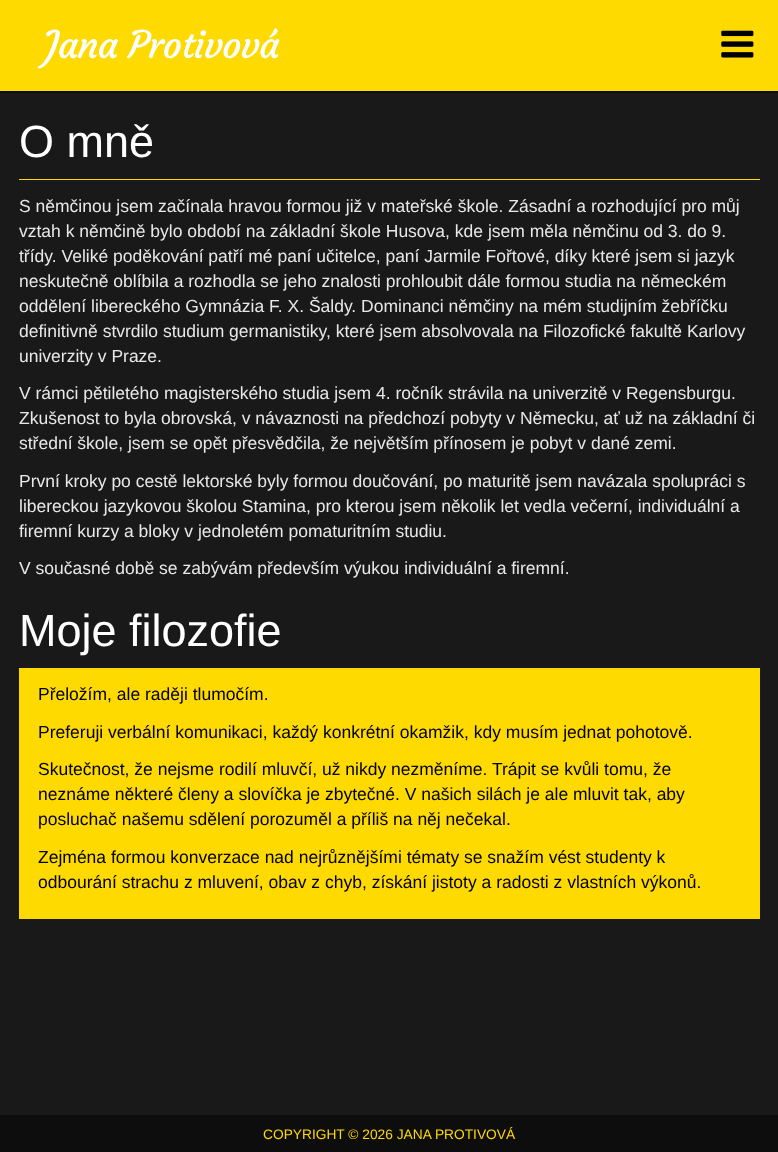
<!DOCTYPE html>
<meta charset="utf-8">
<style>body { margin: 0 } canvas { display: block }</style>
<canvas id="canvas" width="778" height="1152"></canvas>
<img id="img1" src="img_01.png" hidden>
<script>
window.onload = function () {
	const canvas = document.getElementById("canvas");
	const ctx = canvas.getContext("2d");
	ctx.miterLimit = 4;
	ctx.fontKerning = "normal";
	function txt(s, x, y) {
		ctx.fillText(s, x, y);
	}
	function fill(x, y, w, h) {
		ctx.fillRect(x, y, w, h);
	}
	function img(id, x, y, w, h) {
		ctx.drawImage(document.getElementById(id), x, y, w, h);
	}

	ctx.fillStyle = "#191919";
	fill(0, 0, 778, 1152);
	ctx.fillStyle = "#0D0D0D";
	fill(0, 91, 778, 2);
	ctx.fillStyle = "#FEDA00";
	fill(0, 0, 778, 91);
	img("img1", 721, 30, 33, 28);
	fill(19, 179, 741, 1);
	fill(19, 668, 741, 251);
	ctx.fillStyle = "#0D0D0D";
	fill(0, 1115, 778, 37);
	ctx.letterSpacing = "-0.75px";
	ctx.font = "37.5px Courgette";
	ctx.fillStyle = "#FFFFFF";
	txt("Jana Protivová", 44, 58);
	ctx.letterSpacing = "0px";
	ctx.font = "45px Liberation Sans";
	txt("O mně", 19, 157);
	ctx.font = "17.5px Liberation Sans";
	ctx.fillStyle = "#E8E8E8";
	txt("S němčinou jsem začínala hravou formou již v mateřské škole. Zásadní a rozhodující pro můj", 19, 212);
	txt("vztah k němčině bylo období na základní škole Husova, kde jsem měla němčinu od 3. do 9.", 19, 237);
	txt("třídy. Veliké poděkování patří mé paní učitelce, paní Jarmile Fořtové, díky které jsem si jazyk", 19, 262);
	txt("neskutečně oblíbila a rozhodla se jeho znalosti prohloubit dále formou studia na německém", 19, 287);
	txt("oddělení libereckého Gymnázia F. X. Šaldy. Dominanci němčiny na mém studijním žebříčku", 19, 312);
	txt("definitivně stvrdilo studium germanistiky, které jsem absolvovala na Filozofické fakultě Karlovy", 19, 337);
	txt("univerzity v Praze.", 19, 362);
	txt("V rámci pětiletého magisterského studia jsem 4. ročník strávila na univerzitě v Regensburgu.", 19, 399);
	txt("Zkušenost to byla obrovská, v návaznosti na předchozí pobyty v Německu, ať už na základní či", 19, 424);
	txt("střední škole, jsem se opět přesvědčila, že největším přínosem je pobyt v dané zemi.", 19, 449);
	txt("První kroky po cestě lektorské byly formou doučování, po maturitě jsem navázala spolupráci s", 19, 487);
	txt("libereckou jazykovou školou Stamina, pro kterou jsem několik let vedla večerní, individuální a", 19, 512);
	txt("firemní kurzy a bloky v jednoletém pomaturitním studiu.", 19, 537);
	txt("V současné době se zabývám především výukou individuální a firemní.", 19, 574);
	ctx.font = "45px Liberation Sans";
	ctx.fillStyle = "#FFFFFF";
	txt("Moje filozofie", 19, 646);
	ctx.font = "17.5px Liberation Sans";
	ctx.fillStyle = "#000000";
	txt("Přeložím, ale raději tlumočím.", 38, 700);
	txt("Preferuji verbální komunikaci, každý konkrétní okamžik, kdy musím jednat pohotově.", 38, 738);
	txt("Skutečnost, že nejsme rodilí mluvčí, už nikdy nezměníme. Trápit se kvůli tomu, že", 38, 775);
	txt("neznáme některé členy a slovíčka je zbytečné. V našich silách je ale mluvit tak, aby", 38, 800);
	txt("posluchač našemu sdělení porozuměl a příliš na něj nečekal.", 38, 825);
	txt("Zejména formou konverzace nad nejrůznějšími tématy se snažím vést studenty k", 38, 863);
	txt("odbourání strachu z mluvení, obav z chyb, získání jistoty a radosti z vlastních výkonů.", 38, 888);
	ctx.font = "13.75px Liberation Sans";
	ctx.fillStyle = "#FEDA00";
	txt("COPYRIGHT © 2026 JANA PROTIVOVÁ", 263, 1139);
};
</script>
